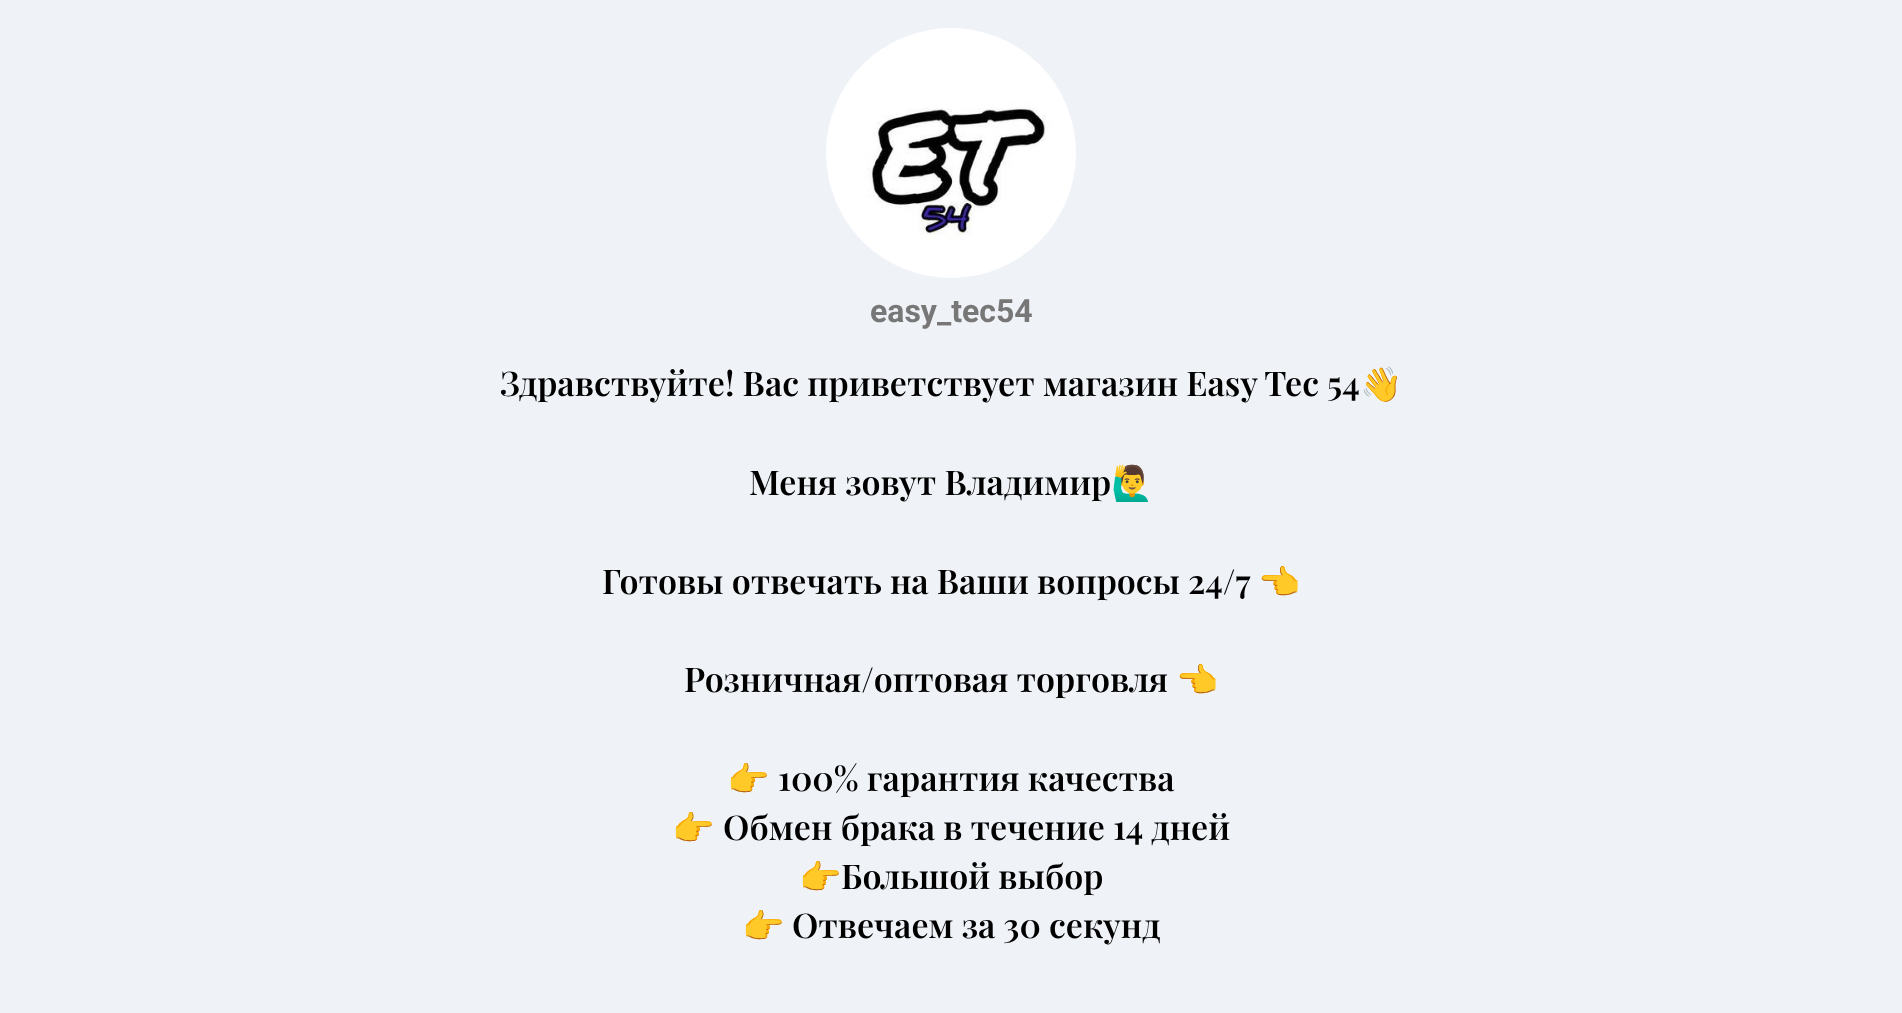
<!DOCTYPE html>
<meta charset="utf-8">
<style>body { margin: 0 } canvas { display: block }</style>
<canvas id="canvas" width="1902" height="1013"></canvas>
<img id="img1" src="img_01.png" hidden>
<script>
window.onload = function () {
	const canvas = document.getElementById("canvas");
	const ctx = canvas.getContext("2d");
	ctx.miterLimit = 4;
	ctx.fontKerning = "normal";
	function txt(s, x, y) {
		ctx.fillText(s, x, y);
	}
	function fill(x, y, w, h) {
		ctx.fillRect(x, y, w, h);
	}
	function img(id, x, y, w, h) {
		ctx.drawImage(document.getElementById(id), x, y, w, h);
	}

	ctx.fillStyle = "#EFF2F7";
	fill(0, 0, 1902, 1013);
	img("img1", 826, 28, 250, 250);
	ctx.font = "bold 32px Roboto";
	ctx.fillStyle = "#777777";
	txt("easy_tec54", 870, 322);
	ctx.font = "600 34px Playfair Display";
	ctx.fillStyle = "#000000";
	txt("Здравствуйте! Вас приветствует магазин Easy Tec 54", 500, 396);
	ctx.font = "bold 34px Noto Color Emoji";
	txt("👋", 1360, 396);
	ctx.font = "600 34px Playfair Display";
	txt("Меня зовут Владимир", 749, 495);
	ctx.font = "bold 34px Noto Color Emoji";
	txt("🙋‍♂", 1111, 495);
	ctx.font = "600 34px Playfair Display";
	txt("Готовы отвечать на Ваши вопросы 24/7", 602, 594);
	ctx.font = "bold 34px Noto Color Emoji";
	txt("👈", 1258, 594);
	ctx.font = "600 34px Playfair Display";
	txt("Розничная/оптовая торговля", 684, 692);
	ctx.font = "bold 34px Noto Color Emoji";
	txt("👈", 1176, 692);
	txt("👉", 727, 791);
	ctx.font = "600 34px Playfair Display";
	txt("100% гарантия качества", 778, 791);
	ctx.font = "bold 34px Noto Color Emoji";
	txt("👉", 672, 840);
	ctx.font = "600 34px Playfair Display";
	txt("Обмен брака в течение 14 дней", 723, 840);
	ctx.font = "bold 34px Noto Color Emoji";
	txt("👉", 799, 889);
	ctx.font = "600 34px Playfair Display";
	txt("Большой выбор", 841, 889);
	ctx.font = "bold 34px Noto Color Emoji";
	txt("👉", 742, 938);
	ctx.font = "600 34px Playfair Display";
	txt("Отвечаем за 30 секунд", 792, 938);
};
</script>
